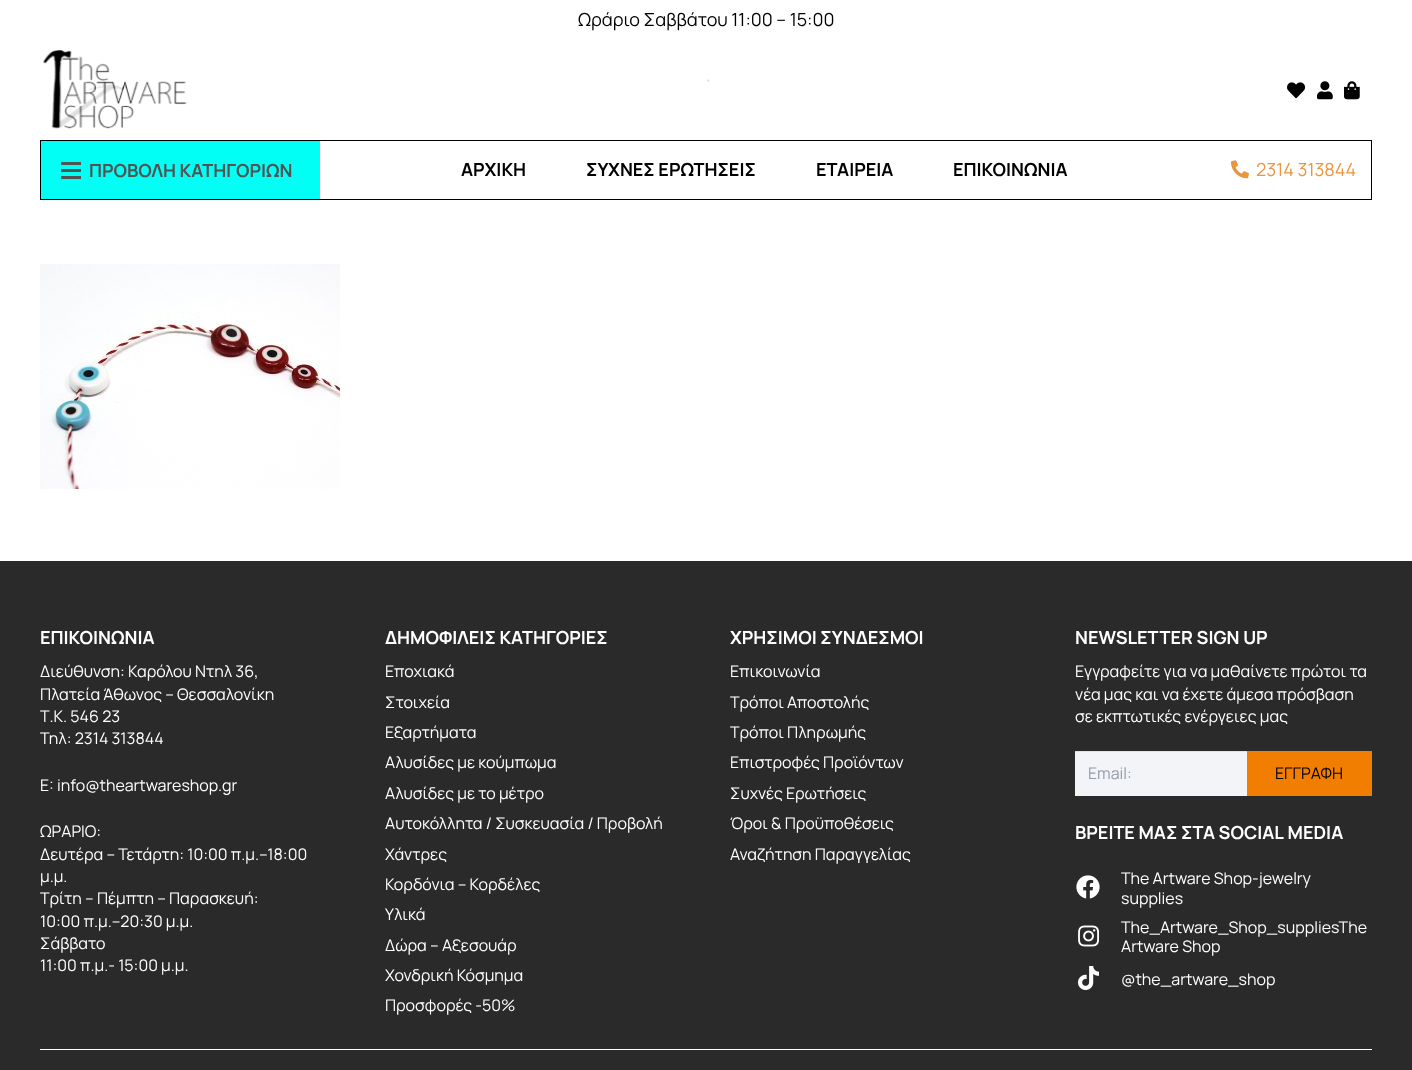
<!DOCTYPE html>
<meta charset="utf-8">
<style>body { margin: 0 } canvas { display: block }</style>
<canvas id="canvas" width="1412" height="1070"></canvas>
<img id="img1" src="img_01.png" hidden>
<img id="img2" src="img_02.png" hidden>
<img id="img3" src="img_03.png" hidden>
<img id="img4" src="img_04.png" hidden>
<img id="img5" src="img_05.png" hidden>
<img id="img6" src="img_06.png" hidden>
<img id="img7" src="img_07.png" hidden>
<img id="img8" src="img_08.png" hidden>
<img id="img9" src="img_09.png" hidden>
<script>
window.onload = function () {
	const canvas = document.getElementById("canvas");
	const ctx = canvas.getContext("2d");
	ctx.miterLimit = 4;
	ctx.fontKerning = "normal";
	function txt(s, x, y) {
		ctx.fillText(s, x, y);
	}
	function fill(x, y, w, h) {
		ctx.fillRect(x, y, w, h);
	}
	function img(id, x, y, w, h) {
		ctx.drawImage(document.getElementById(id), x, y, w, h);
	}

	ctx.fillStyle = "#FFFFFF";
	fill(0, 0, 1412, 1070);
	img("img1", 43, 50, 144, 79);
	ctx.beginPath();
	ctx.moveTo(708, 80.5);
	ctx.lineTo(708.5, 80.5);
	ctx.strokeStyle = "#DDDDDD";
	ctx.lineWidth = 1.9;
	ctx.lineCap = "round";
	ctx.stroke();
	img("img2", 1287, 82, 18, 17);
	img("img3", 1317, 81, 16, 19);
	img("img4", 1344, 81, 16, 19);
	ctx.strokeStyle = "#000000";
	ctx.lineWidth = 1;
	ctx.strokeRect(40.5, 140.5, 1331, 59);
	ctx.fillStyle = "#01FFF5";
	fill(41, 141, 279, 58);
	ctx.fillStyle = "#525252";
	fill(61, 169, 20, 3);
	fill(61, 162, 20, 3);
	fill(61, 176, 20, 3);
	img("img5", 1231, 160, 18, 19);
	img("img6", 40, 264, 300, 225);
	ctx.fillStyle = "#2A2A2A";
	fill(0, 561, 1412, 509);
	ctx.fillStyle = "#F2F4F7";
	fill(1075, 752, 172, 44);
	ctx.fillStyle = "#DFE0E3";
	fill(1075, 751, 172, 1);
	ctx.fillStyle = "#F17E00";
	fill(1247, 751, 125, 45);
	img("img7", 1076, 875, 24, 24);
	img("img8", 1078, 925, 22, 22);
	img("img9", 1078, 966, 21, 24);
	ctx.fillStyle = "#FFFFFF";
	fill(40, 1049, 1332, 1);
	ctx.font = "18px Manrope";
	ctx.fillStyle = "#000000";
	txt("Ωράριο Σαββάτου 11:00 – 15:00", 578, 26);
	ctx.font = "bold 18px Manrope";
	ctx.fillStyle = "#525252";
	txt("ΠΡΟΒΟΛΗ ΚΑΤΗΓΟΡΙΩΝ", 89, 177);
	ctx.fillStyle = "#000000";
	txt("ΑΡΧΙΚΗ", 461, 176);
	txt("ΣΥΧΝΕΣ ΕΡΩΤΗΣΕΙΣ", 586, 176);
	txt("ΕΤΑΙΡΕΙΑ", 816, 176);
	txt("ΕΠΙΚΟΙΝΩΝΙΑ", 953, 176);
	ctx.font = "18px Manrope";
	ctx.fillStyle = "#EA953F";
	txt("2314 313844", 1256, 176);
	ctx.font = "bold 18px Manrope";
	ctx.fillStyle = "#FFFFFF";
	txt("ΕΠΙΚΟΙΝΩΝΙΑ", 40, 644);
	ctx.font = "16px Manrope";
	txt("Διεύθυνση: Καρόλου Ντηλ 36,", 40, 677);
	txt("Πλατεία Άθωνος – Θεσσαλονίκη", 40, 700);
	txt("Τ.Κ. 546 23", 40, 722);
	txt("Τηλ: 2314 313844", 40, 744);
	txt("E: info@theartwareshop.gr", 40, 791);
	txt("ΩΡΑΡΙΟ:", 40, 837);
	txt("Δευτέρα – Τετάρτη: 10:00 π.μ.–18:00", 40, 860);
	txt("μ.μ.", 40, 882);
	txt("Τρίτη – Πέμπτη – Παρασκευή:", 40, 904);
	txt("10:00 π.μ.–20:30 μ.μ.", 40, 927);
	txt("Σάββατο", 40, 949);
	txt("11:00 π.μ.- 15:00 μ.μ.", 40, 971);
	ctx.font = "bold 18px Manrope";
	txt("ΔΗΜΟΦΙΛΕΙΣ ΚΑΤΗΓΟΡΙΕΣ", 385, 644);
	ctx.font = "16px Manrope";
	txt("Εποχιακά", 385, 677);
	txt("Στοιχεία", 385, 708);
	txt("Εξαρτήματα", 385, 738);
	txt("Αλυσίδες με κούμπωμα", 385, 768);
	txt("Αλυσίδες με το μέτρο", 385, 799);
	txt("Αυτοκόλλητα / Συσκευασία / Προβολή", 385, 829);
	txt("Χάντρες", 385, 860);
	txt("Κορδόνια – Κορδέλες", 385, 890);
	txt("Υλικά", 385, 920);
	txt("Δώρα – Αξεσουάρ", 385, 951);
	txt("Χονδρική Κόσμημα", 385, 981);
	txt("Προσφορές -50%", 385, 1011);
	ctx.font = "bold 18px Manrope";
	txt("ΧΡΗΣΙΜΟΙ ΣΥΝΔΕΣΜΟΙ", 730, 644);
	ctx.font = "16px Manrope";
	txt("Επικοινωνία", 730, 677);
	txt("Τρόποι Αποστολής", 730, 708);
	txt("Τρόποι Πληρωμής", 730, 738);
	txt("Επιστροφές Προϊόντων", 730, 768);
	txt("Συχνές Ερωτήσεις", 730, 799);
	txt("Όροι & Προϋποθέσεις", 730, 829);
	txt("Αναζήτηση Παραγγελίας", 730, 860);
	ctx.font = "bold 18px Manrope";
	txt("NEWSLETTER SIGN UP", 1075, 644);
	ctx.font = "16px Manrope";
	txt("Εγγραφείτε για να μαθαίνετε πρώτοι τα", 1075, 677);
	txt("νέα μας και να έχετε άμεσα πρόσβαση", 1075, 700);
	txt("σε εκπτωτικές ενέργειες μας", 1075, 722);
	ctx.fillStyle = "#949BA9";
	txt("Εmail:", 1088, 779);
	ctx.fillStyle = "#000000";
	txt("ΕΓΓΡΑΦΗ", 1275, 779);
	ctx.font = "bold 18px Manrope";
	ctx.fillStyle = "#FFFFFF";
	txt("ΒΡΕΙΤΕ ΜΑΣ ΣΤΑ SOCIAL MEDIA", 1075, 839);
	ctx.font = "16px Manrope";
	txt("The Artware Shop-jewelry", 1121, 884);
	txt("supplies", 1121, 904);
	txt("The_Artware_Shop_suppliesThe", 1121, 933);
	txt("Artware Shop", 1121, 952);
	txt("@the_artware_shop", 1121, 985);
};
</script>
